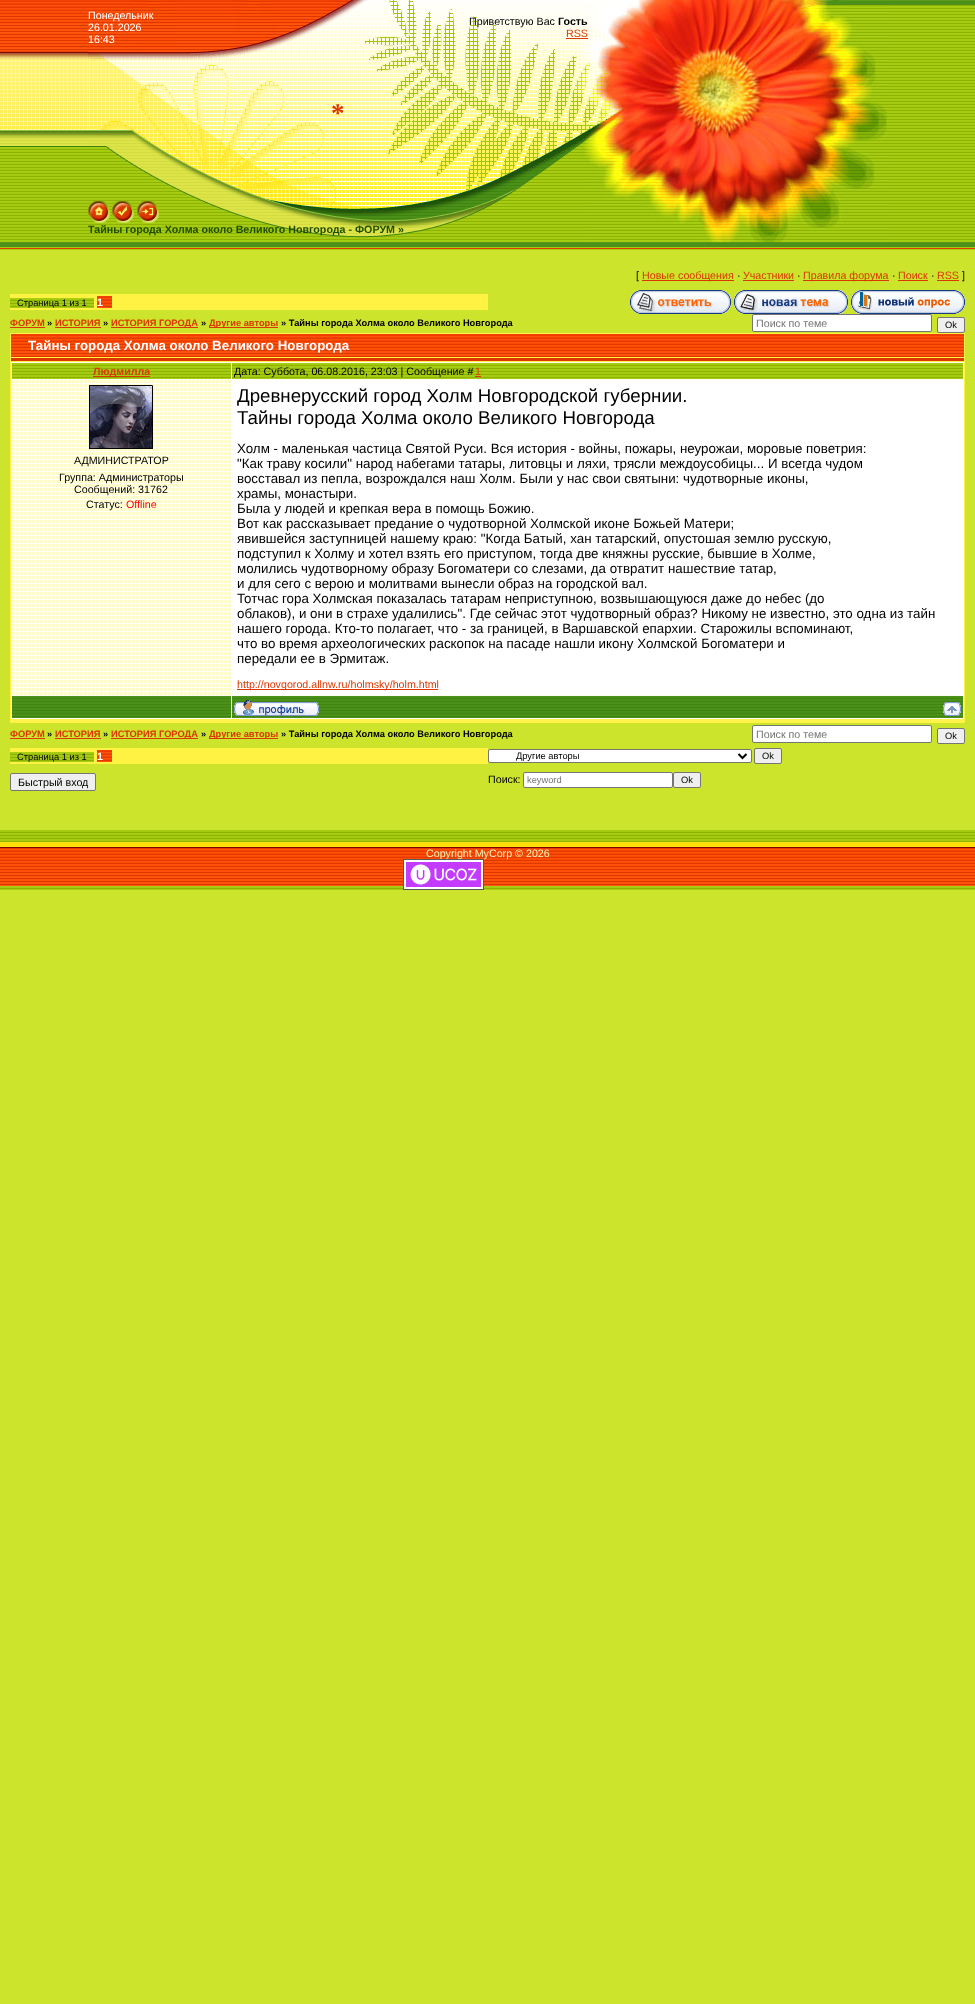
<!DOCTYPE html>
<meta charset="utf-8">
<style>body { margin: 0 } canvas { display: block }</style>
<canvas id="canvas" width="975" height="2004"></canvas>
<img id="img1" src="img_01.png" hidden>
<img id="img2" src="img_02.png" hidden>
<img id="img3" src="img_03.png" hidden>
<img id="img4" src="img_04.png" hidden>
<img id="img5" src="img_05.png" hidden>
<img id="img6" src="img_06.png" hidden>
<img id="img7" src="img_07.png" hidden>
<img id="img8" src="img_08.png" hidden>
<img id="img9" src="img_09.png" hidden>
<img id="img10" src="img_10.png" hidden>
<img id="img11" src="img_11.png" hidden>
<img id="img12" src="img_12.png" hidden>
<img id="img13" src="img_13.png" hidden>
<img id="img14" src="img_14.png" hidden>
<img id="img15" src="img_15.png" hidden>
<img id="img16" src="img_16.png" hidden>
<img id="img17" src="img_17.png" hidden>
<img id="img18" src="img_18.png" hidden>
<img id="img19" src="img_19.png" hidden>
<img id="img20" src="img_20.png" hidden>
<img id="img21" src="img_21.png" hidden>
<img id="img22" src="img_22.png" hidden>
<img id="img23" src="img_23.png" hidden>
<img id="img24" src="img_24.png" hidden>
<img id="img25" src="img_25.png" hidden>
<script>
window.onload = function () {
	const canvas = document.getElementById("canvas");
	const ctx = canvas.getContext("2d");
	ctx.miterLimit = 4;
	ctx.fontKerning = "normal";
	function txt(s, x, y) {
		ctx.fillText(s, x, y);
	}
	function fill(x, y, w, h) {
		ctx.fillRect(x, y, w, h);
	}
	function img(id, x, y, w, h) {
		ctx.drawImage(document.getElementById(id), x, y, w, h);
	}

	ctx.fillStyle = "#CCE42C";
	fill(0, 0, 975, 2004);
	img("img1", 0, 0, 88, 250);
	img("img2", 88, 0, 500, 53);
	ctx.fillStyle = "#DC3700";
	fill(566, 38, 22, 1);
	img("img3", 588, 0, 300, 250);
	img("img4", 888, 0, 87, 250);
	img("img5", 88, 53, 500, 120);
	img("img6", 88, 173, 500, 77);
	img("img7", 88, 201, 22, 22);
	img("img8", 112, 201, 22, 22);
	img("img9", 137, 201, 22, 22);
	fill(642, 280, 92, 1);
	fill(743, 280, 51, 1);
	fill(803, 280, 86, 1);
	fill(898, 280, 30, 1);
	fill(937, 280, 22, 1);
	ctx.fillStyle = "#FFF243";
	fill(10, 294, 478, 16);
	img("img10", 10, 298, 84, 10);
	img("img11", 97, 296, 15, 12);
	img("img12", 630, 290, 101, 24);
	img("img13", 734, 290, 114, 24);
	img("img14", 851, 290, 114, 24);
	ctx.fillStyle = "#DC3700";
	fill(10, 327, 35, 1);
	fill(55, 327, 46, 1);
	fill(111, 327, 87, 1);
	fill(209, 327, 69, 1);
	ctx.fillStyle = "#FFFFFF";
	ctx.beginPath();
	ctx.roundRect(752.5, 314.5, 179, 17, 1.5);
	ctx.fill();
	ctx.strokeStyle = "#767676";
	ctx.stroke();
	ctx.fillStyle = "#EFEFEF";
	ctx.beginPath();
	ctx.roundRect(937.5, 317.5, 27, 15, 1.5);
	ctx.fill();
	ctx.stroke();
	ctx.fillStyle = "#FFF243";
	fill(10, 333, 955, 390);
	img("img15", 11, 334, 953, 23);
	ctx.fillStyle = "#DC3700";
	fill(11, 358, 953, 3);
	ctx.fillStyle = "#FDFCF4";
	fill(11, 362, 953, 357);
	ctx.fillStyle = "#FFF350";
	fill(11, 719, 953, 3);
	img("img16", 12, 363, 219, 16);
	ctx.fillStyle = "#DC3700";
	fill(93, 376, 57, 1);
	img("img17", 232, 363, 731, 16);
	fill(475, 376, 6, 1);
	img("img18", 12, 380, 219, 315);
	img("img19", 89, 385, 64, 64);
	ctx.fillStyle = "#FFFFFF";
	fill(232, 380, 731, 315);
	ctx.fillStyle = "#DC3700";
	fill(237, 689, 201, 1);
	ctx.fillStyle = "#4B9019";
	fill(12, 696, 219, 22);
	img("img20", 12, 698, 219, 19);
	fill(232, 696, 731, 22);
	img("img21", 232, 698, 731, 19);
	img("img22", 234, 700, 85, 16);
	img("img23", 943, 702, 18, 14);
	ctx.fillStyle = "#DC3700";
	fill(10, 738, 35, 1);
	fill(55, 738, 46, 1);
	fill(111, 738, 87, 1);
	fill(209, 738, 69, 1);
	ctx.fillStyle = "#FFFFFF";
	ctx.beginPath();
	ctx.roundRect(752.5, 725.5, 179, 17, 1.5);
	ctx.fill();
	ctx.stroke();
	ctx.fillStyle = "#EFEFEF";
	ctx.beginPath();
	ctx.roundRect(937.5, 728.5, 27, 15, 1.5);
	ctx.fill();
	ctx.stroke();
	ctx.fillStyle = "#FFF243";
	fill(10, 748, 478, 16);
	img("img10", 10, 752, 84, 10);
	img("img11", 97, 750, 15, 12);
	ctx.fillStyle = "#FFFFFF";
	ctx.beginPath();
	ctx.roundRect(488.5, 749.5, 263, 13, 1.5);
	ctx.fill();
	ctx.stroke();
	ctx.beginPath();
	ctx.moveTo(738.5, 754);
	ctx.lineTo(742.5, 758);
	ctx.lineTo(746.5, 754);
	ctx.strokeStyle = "#000000";
	ctx.lineWidth = 2;
	ctx.stroke();
	ctx.fillStyle = "#EFEFEF";
	ctx.beginPath();
	ctx.roundRect(754.5, 748.5, 27, 15, 1.5);
	ctx.fill();
	ctx.strokeStyle = "#767676";
	ctx.lineWidth = 1;
	ctx.stroke();
	ctx.beginPath();
	ctx.roundRect(10.5, 773.5, 85, 17, 1.5);
	ctx.fill();
	ctx.stroke();
	ctx.fillStyle = "#FFFFFF";
	ctx.beginPath();
	ctx.roundRect(523.5, 772.5, 149, 15, 1.5);
	ctx.fill();
	ctx.stroke();
	ctx.fillStyle = "#EFEFEF";
	ctx.beginPath();
	ctx.roundRect(673.5, 772.5, 27, 15, 1.5);
	ctx.fill();
	ctx.stroke();
	img("img24", 0, 830, 975, 60);
	ctx.font = "10.7px Liberation Sans";
	ctx.fillStyle = "#FFFFFF";
	txt("Понедельник", 88, 19);
	txt("26.01.2026", 88, 31);
	txt("16:43", 88, 43);
	ctx.fillStyle = "#000000";
	txt("Приветствую Вас", 469, 25);
	ctx.font = "bold 10.7px Liberation Sans";
	txt("Гость", 558, 25);
	ctx.font = "10.7px Liberation Sans";
	ctx.fillStyle = "#DC3700";
	txt("RSS", 566, 37);
	ctx.font = "bold 27px Liberation Serif";
	txt("*", 331, 122);
	ctx.font = "bold 10.7px Liberation Sans";
	ctx.fillStyle = "#1F4D00";
	txt("Тайны города Холма около Великого Новгорода - ФОРУМ »", 88, 233);
	ctx.font = "10.7px Liberation Sans";
	ctx.fillStyle = "#000000";
	txt("[", 636, 279);
	ctx.fillStyle = "#DC3700";
	txt("Новые сообщения", 642, 279);
	ctx.fillStyle = "#000000";
	txt("·", 737, 279);
	ctx.fillStyle = "#DC3700";
	txt("Участники", 743, 279);
	ctx.fillStyle = "#000000";
	txt("·", 797, 279);
	ctx.fillStyle = "#DC3700";
	txt("Правила форума", 803, 279);
	ctx.fillStyle = "#000000";
	txt("·", 892, 279);
	ctx.fillStyle = "#DC3700";
	txt("Поиск", 898, 279);
	ctx.fillStyle = "#000000";
	txt("·", 931, 279);
	ctx.fillStyle = "#DC3700";
	txt("RSS", 937, 279);
	ctx.fillStyle = "#000000";
	txt("]", 962, 279);
	ctx.font = "9.3px Liberation Sans";
	txt("Страница 1 из 1", 17, 306);
	ctx.font = "bold 10.7px Liberation Sans";
	ctx.fillStyle = "#FFFFFF";
	txt("1", 97, 306);
	ctx.font = "bold 9.3px Liberation Sans";
	ctx.fillStyle = "#DC3700";
	txt("ФОРУМ", 10, 326);
	ctx.fillStyle = "#000000";
	txt("»", 47, 326);
	ctx.fillStyle = "#DC3700";
	txt("ИСТОРИЯ", 55, 326);
	ctx.fillStyle = "#000000";
	txt("»", 103, 326);
	ctx.fillStyle = "#DC3700";
	txt("ИСТОРИЯ ГОРОДА", 111, 326);
	ctx.fillStyle = "#000000";
	txt("»", 201, 326);
	ctx.fillStyle = "#DC3700";
	txt("Другие авторы", 209, 326);
	ctx.fillStyle = "#000000";
	txt("» Тайны города Холма около Великого Новгорода", 281, 326);
	ctx.font = "10.7px Liberation Sans";
	ctx.fillStyle = "#757575";
	txt("Поиск по теме", 756, 327);
	ctx.font = "9.3px Liberation Sans";
	ctx.fillStyle = "#000000";
	txt("Ok", 945, 328);
	ctx.font = "bold 13.33px Liberation Sans";
	ctx.fillStyle = "#FFFFFF";
	txt("Тайны города Холма около Великого Новгорода", 28, 350);
	ctx.font = "bold 10.7px Liberation Sans";
	ctx.fillStyle = "#DC3700";
	txt("Людмилла", 93, 375);
	ctx.font = "10.7px Liberation Sans";
	ctx.fillStyle = "#000000";
	txt("Дата: Суббота, 06.08.2016, 23:03 | Сообщение #", 234, 375);
	ctx.fillStyle = "#DC3700";
	txt("1", 475, 375);
	ctx.fillStyle = "#000000";
	txt("АДМИНИСТРАТОР", 74, 464);
	txt("Группа: Администраторы", 59, 481);
	txt("Сообщений: 31762", 74, 493);
	txt("Статус:", 86, 508);
	ctx.fillStyle = "#FF0000";
	txt("Offline", 126, 508);
	ctx.font = "18.7px Liberation Sans";
	ctx.fillStyle = "#000000";
	txt("Древнерусский город Холм Новгородской губернии.", 237, 402);
	txt("Тайны города Холма около Великого Новгорода", 237, 424);
	ctx.font = "13.33px Liberation Sans";
	txt("Холм - маленькая частица Святой Руси. Вся история - войны, пожары, неурожаи, моровые поветрия:", 237, 453);
	txt("\"Как траву косили\" народ набегами татары, литовцы и ляхи, трясли междоусобицы... И всегда чудом", 237, 468);
	txt("восставал из пепла, возрождался наш Холм. Были у нас свои святыни: чудотворные иконы,", 237, 483);
	txt("храмы, монастыри.", 237, 498);
	txt("Была у людей и крепкая вера в помощь Божию.", 237, 513);
	txt("Вот как рассказывает предание о чудотворной Холмской иконе Божьей Матери;", 237, 528);
	txt("явившейся заступницей нашему краю: \"Когда Батый, хан татарский, опустошая землю русскую,", 237, 543);
	txt("подступил к Холму и хотел взять его приступом, тогда две княжны русские, бывшие в Холме,", 237, 558);
	txt("молились чудотворному образу Богоматери со слезами, да отвратит нашествие татар,", 237, 573);
	txt("и для сего с верою и молитвами вынесли образ на городской вал.", 237, 588);
	txt("Тотчас гора Холмская показалась татарам неприступною, возвышающуюся даже до небес (до", 237, 603);
	txt("облаков), и они в страхе удалились\". Где сейчас этот чудотворный образ? Никому не известно, это одна из тайн", 237, 618);
	txt("нашего города. Кто-то полагает, что - за границей, в Варшавской епархии. Старожилы вспоминают,", 237, 633);
	txt("что во время археологических раскопок на пасаде нашли икону Холмской Богоматери и", 237, 648);
	txt("передали ее в Эрмитаж.", 237, 663);
	ctx.font = "10.7px Liberation Sans";
	ctx.fillStyle = "#DC3700";
	txt("http://novgorod.allnw.ru/holmsky/holm.html", 237, 688);
	ctx.font = "bold 9.3px Liberation Sans";
	txt("ФОРУМ", 10, 737);
	ctx.fillStyle = "#000000";
	txt("»", 47, 737);
	ctx.fillStyle = "#DC3700";
	txt("ИСТОРИЯ", 55, 737);
	ctx.fillStyle = "#000000";
	txt("»", 103, 737);
	ctx.fillStyle = "#DC3700";
	txt("ИСТОРИЯ ГОРОДА", 111, 737);
	ctx.fillStyle = "#000000";
	txt("»", 201, 737);
	ctx.fillStyle = "#DC3700";
	txt("Другие авторы", 209, 737);
	ctx.fillStyle = "#000000";
	txt("» Тайны города Холма около Великого Новгорода", 281, 737);
	ctx.font = "10.7px Liberation Sans";
	ctx.fillStyle = "#757575";
	txt("Поиск по теме", 756, 738);
	ctx.font = "9.3px Liberation Sans";
	ctx.fillStyle = "#000000";
	txt("Ok", 945, 739);
	txt("Страница 1 из 1", 17, 760);
	ctx.font = "bold 10.7px Liberation Sans";
	ctx.fillStyle = "#FFFFFF";
	txt("1", 97, 760);
	ctx.font = "9.3px Liberation Sans";
	ctx.fillStyle = "#000000";
	txt("Другие авторы", 516, 759);
	txt("Ok", 762, 759);
	ctx.font = "10.7px Liberation Sans";
	txt("Быстрый вход", 18, 786);
	txt("Поиск:", 488, 783);
	ctx.font = "9.3px Liberation Sans";
	ctx.fillStyle = "#757575";
	txt("keyword", 527, 783);
	ctx.fillStyle = "#000000";
	txt("Ok", 681, 783);
	ctx.font = "10.7px Liberation Sans";
	ctx.fillStyle = "#F9F7BA";
	txt("Copyright MyCorp © 2026", 426, 857);
	img("img25", 403, 859, 81, 31);
};
</script>
